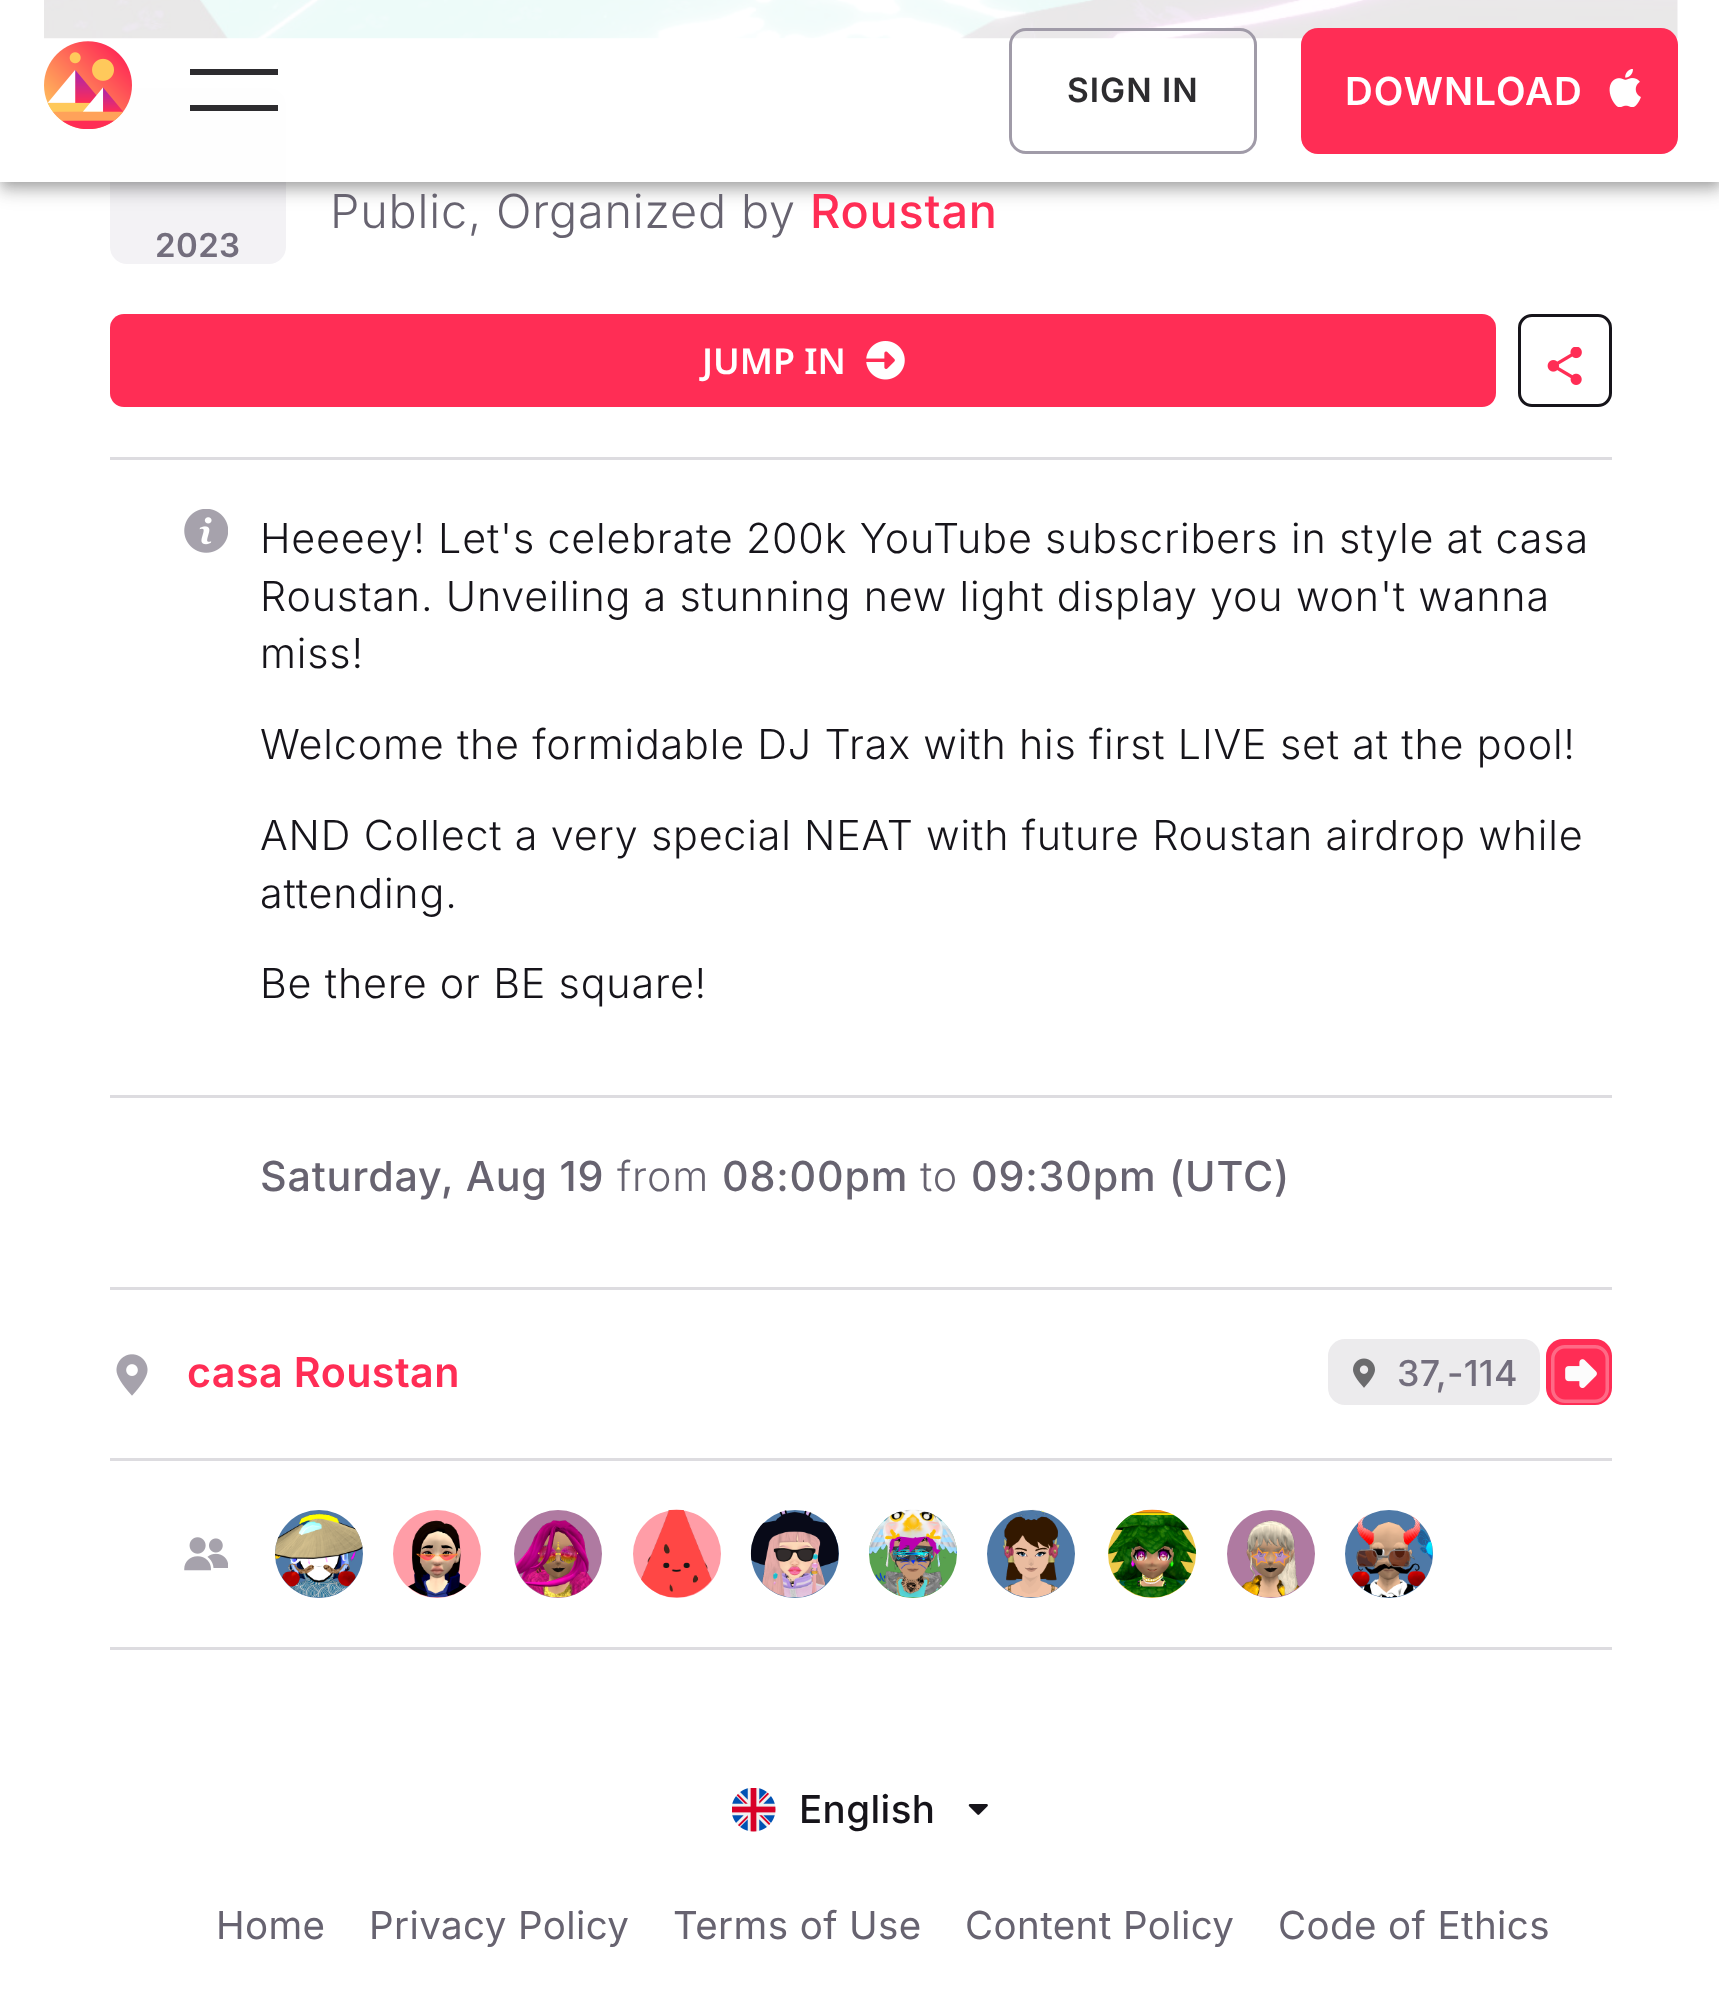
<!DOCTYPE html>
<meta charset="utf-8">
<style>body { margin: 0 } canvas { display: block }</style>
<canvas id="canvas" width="1719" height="1993"></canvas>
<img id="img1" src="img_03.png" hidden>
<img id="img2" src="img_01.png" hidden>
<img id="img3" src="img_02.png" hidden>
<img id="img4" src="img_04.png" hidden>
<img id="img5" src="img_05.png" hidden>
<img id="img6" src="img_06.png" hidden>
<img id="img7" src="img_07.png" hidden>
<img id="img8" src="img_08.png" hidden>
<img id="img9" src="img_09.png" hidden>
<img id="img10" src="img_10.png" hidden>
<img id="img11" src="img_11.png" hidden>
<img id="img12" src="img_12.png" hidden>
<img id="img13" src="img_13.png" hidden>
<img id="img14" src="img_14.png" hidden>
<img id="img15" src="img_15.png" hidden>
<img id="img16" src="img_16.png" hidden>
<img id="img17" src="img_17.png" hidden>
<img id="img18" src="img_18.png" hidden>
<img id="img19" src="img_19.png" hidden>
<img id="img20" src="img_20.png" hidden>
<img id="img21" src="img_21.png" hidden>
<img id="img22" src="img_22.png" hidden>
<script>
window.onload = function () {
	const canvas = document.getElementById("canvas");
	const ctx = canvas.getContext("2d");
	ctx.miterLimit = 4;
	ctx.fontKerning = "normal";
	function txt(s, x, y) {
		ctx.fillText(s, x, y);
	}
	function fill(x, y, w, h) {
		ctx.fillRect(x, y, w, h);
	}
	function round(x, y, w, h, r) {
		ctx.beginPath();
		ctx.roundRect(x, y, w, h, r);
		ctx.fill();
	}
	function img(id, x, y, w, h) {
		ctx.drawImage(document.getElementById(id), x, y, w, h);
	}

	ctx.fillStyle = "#FFFFFF";
	fill(0, 0, 1719, 1993);
	img("img1", 44, 0, 1634, 39);
	ctx.fillStyle = "#F3F2F5";
	round(110, 88, 176, 176, 17);
	ctx.save();
	ctx.beginPath();
	ctx.moveTo(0, 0);
	ctx.lineTo(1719, 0);
	ctx.lineTo(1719, 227);
	ctx.lineTo(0, 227);
	ctx.closePath();
	ctx.moveTo(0, 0);
	ctx.lineTo(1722, 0);
	ctx.lineTo(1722, 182);
	ctx.lineTo(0, 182);
	ctx.closePath();
	ctx.clip("evenodd");
	ctx.fillStyle = "rgba(0, 0, 0, 0.12)";
	ctx.filter = "blur(14px)";
	ctx.beginPath();
	ctx.rect(0, 3, 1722, 181);
	ctx.fill();
	ctx.filter = "none";
	ctx.restore();
	ctx.save();
	ctx.beginPath();
	ctx.moveTo(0, 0);
	ctx.lineTo(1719, 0);
	ctx.lineTo(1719, 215);
	ctx.lineTo(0, 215);
	ctx.closePath();
	ctx.moveTo(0, 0);
	ctx.lineTo(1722, 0);
	ctx.lineTo(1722, 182);
	ctx.lineTo(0, 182);
	ctx.closePath();
	ctx.clip("evenodd");
	ctx.fillStyle = "rgba(0, 0, 0, 0.14)";
	ctx.filter = "blur(7px)";
	ctx.beginPath();
	ctx.rect(0, 11, 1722, 182);
	ctx.fill();
	ctx.filter = "none";
	ctx.restore();
	ctx.save();
	ctx.beginPath();
	ctx.moveTo(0, 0);
	ctx.lineTo(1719, 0);
	ctx.lineTo(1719, 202);
	ctx.lineTo(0, 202);
	ctx.closePath();
	ctx.moveTo(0, 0);
	ctx.lineTo(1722, 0);
	ctx.lineTo(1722, 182);
	ctx.lineTo(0, 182);
	ctx.closePath();
	ctx.clip("evenodd");
	ctx.fillStyle = "rgba(0, 0, 0, 0.2)";
	ctx.filter = "blur(5.5px)";
	ctx.beginPath();
	ctx.rect(3, 8, 1716, 176);
	ctx.fill();
	ctx.filter = "none";
	ctx.restore();
	ctx.fillStyle = "rgba(255, 255, 255, 0.9)";
	fill(0, 0, 1719, 182);
	img("img2", 44, 41, 88, 88);
	ctx.fillStyle = "#2D2C2F";
	fill(190, 69, 88, 6);
	ctx.fillStyle = "rgba(22, 21, 24, 0.9)";
	fill(190, 105, 88, 6);
	ctx.beginPath();
	ctx.roundRect(1010.5, 29.5, 245, 123, 15.5);
	ctx.strokeStyle = "#A09BA8";
	ctx.lineWidth = 3;
	ctx.stroke();
	ctx.fillStyle = "#FF2D55";
	round(1301, 28, 377, 126, 17);
	img("img3", 1609, 69, 32, 38);
	round(110, 314, 1386, 93, 14);
	img("img4", 866, 341, 39, 39);
	ctx.beginPath();
	ctx.roundRect(1519.5, 315.5, 91, 90, 12.5);
	ctx.strokeStyle = "#16141A";
	ctx.stroke();
	img("img5", 1547, 347, 35, 38);
	ctx.fillStyle = "#DDDCE0";
	fill(110, 457, 1502, 3);
	img("img6", 184, 509, 44, 44);
	fill(110, 1095, 1502, 3);
	fill(110, 1287, 1502, 3);
	img("img7", 116, 1354, 32, 42);
	ctx.fillStyle = "#ECEBED";
	round(1328, 1339, 212, 66, 17);
	img("img8", 1353, 1358, 22, 30);
	ctx.fillStyle = "#FF2D55";
	round(1546, 1339, 66, 66, 17);
	img("img9", 1551, 1345, 58, 58);
	ctx.fillStyle = "#DDDCE0";
	fill(110, 1458, 1502, 3);
	img("img10", 184, 1537, 44, 34);
	ctx.fillStyle = "#4E79A7";
	ctx.beginPath();
	ctx.arc(319, 1554, 44, 0, Math.PI * 2);
	ctx.fill();
	img("img11", 275, 1513, 88, 85);
	ctx.fillStyle = "#FF9DA7";
	ctx.beginPath();
	ctx.arc(437, 1554, 44, 0, Math.PI * 2);
	ctx.fill();
	img("img12", 408, 1520, 59, 78);
	ctx.fillStyle = "#AF7AA1";
	ctx.beginPath();
	ctx.arc(558, 1554, 44, 0, Math.PI * 2);
	ctx.fill();
	img("img13", 515, 1520, 78, 78);
	ctx.fillStyle = "#FF9DA7";
	ctx.beginPath();
	ctx.arc(677, 1554, 44, 0, Math.PI * 2);
	ctx.fill();
	img("img14", 641, 1509, 71, 89);
	ctx.fillStyle = "#4E79A7";
	ctx.beginPath();
	ctx.arc(795, 1554, 44, 0, Math.PI * 2);
	ctx.fill();
	img("img15", 750, 1510, 89, 88);
	ctx.fillStyle = "#59A14F";
	ctx.beginPath();
	ctx.arc(913, 1554, 44, 0, Math.PI * 2);
	ctx.fill();
	img("img16", 869, 1509, 88, 89);
	ctx.fillStyle = "#4E79A7";
	ctx.beginPath();
	ctx.arc(1031, 1554, 44, 0, Math.PI * 2);
	ctx.fill();
	img("img17", 1003, 1509, 57, 89);
	ctx.fillStyle = "#EDC949";
	ctx.beginPath();
	ctx.arc(1152, 1554, 44, 0, Math.PI * 2);
	ctx.fill();
	img("img18", 1108, 1509, 89, 89);
	ctx.fillStyle = "#AF7AA1";
	ctx.beginPath();
	ctx.arc(1271, 1554, 44, 0, Math.PI * 2);
	ctx.fill();
	img("img19", 1241, 1520, 59, 78);
	ctx.fillStyle = "#4E79A7";
	ctx.beginPath();
	ctx.arc(1389, 1554, 44, 0, Math.PI * 2);
	ctx.fill();
	img("img20", 1351, 1514, 82, 84);
	ctx.fillStyle = "#DDDCE0";
	fill(110, 1647, 1502, 3);
	img("img21", 732, 1788, 44, 44);
	img("img22", 968, 1804, 20, 11);
	ctx.letterSpacing = "1px";
	ctx.font = "600 33.5px Inter";
	ctx.fillStyle = "#2D2C2F";
	txt("SIGN IN", 1067, 102);
	ctx.font = "600 38.5px Inter";
	ctx.fillStyle = "#FFFFFF";
	txt("DOWNLOAD", 1345, 105);
	ctx.letterSpacing = "0.82px";
	ctx.font = "300 46.75px Inter";
	ctx.fillStyle = "#676370";
	txt("Public, Organized by", 330, 228);
	ctx.font = "500 46.75px Inter";
	ctx.fillStyle = "#FF2D55";
	txt("Roustan", 810, 228);
	ctx.letterSpacing = "0.4px";
	ctx.font = "600 33px Inter";
	ctx.fillStyle = "#736E7D";
	txt("2023", 155, 257);
	ctx.letterSpacing = "0px";
	ctx.font = "600 35.75px Noto Sans";
	ctx.fillStyle = "#FFFFFF";
	txt("JUMP IN", 702, 374);
	ctx.letterSpacing = "0.82px";
	ctx.font = "300 41.25px Inter";
	ctx.fillStyle = "#16141A";
	txt("Heeeey! Let's celebrate 200k YouTube subscribers in style at casa", 260, 553);
	txt("Roustan. Unveiling a stunning new light display you won't wanna", 260, 611);
	txt("miss!", 260, 668);
	txt("Welcome the formidable DJ Trax with his first LIVE set at the pool!", 260, 759);
	txt("AND Collect a very special NEAT with future Roustan airdrop while", 260, 850);
	txt("attending.", 260, 908);
	txt("Be there or BE square!", 260, 998);
	ctx.font = "500 41.25px Inter";
	ctx.fillStyle = "#676370";
	txt("Saturday, Aug 19", 260, 1191);
	ctx.font = "300 41.25px Inter";
	txt("from", 617, 1191);
	ctx.font = "500 41.25px Inter";
	txt("08:00pm", 722, 1191);
	ctx.font = "300 41.25px Inter";
	txt("to", 920, 1191);
	ctx.font = "500 41.25px Inter";
	txt("09:30pm", 971, 1191);
	txt("(UTC)", 1169, 1191);
	ctx.letterSpacing = "0.4px";
	ctx.font = "600 41.25px Inter";
	ctx.fillStyle = "#FF2D55";
	txt("casa Roustan", 187, 1387);
	ctx.letterSpacing = "0.25px";
	ctx.font = "500 35.75px Inter";
	ctx.fillStyle = "#736E7D";
	txt("37,-114", 1397, 1386);
	ctx.letterSpacing = "0.4px";
	ctx.font = "500 38.5px Inter";
	ctx.fillStyle = "#16141A";
	txt("English", 799, 1823);
	ctx.font = "38.5px Inter";
	ctx.fillStyle = "#676370";
	txt("Home", 216, 1939);
	txt("Privacy Policy", 369, 1939);
	txt("Terms of Use", 673, 1939);
	txt("Content Policy", 965, 1939);
	txt("Code of Ethics", 1278, 1939);
};
</script>
